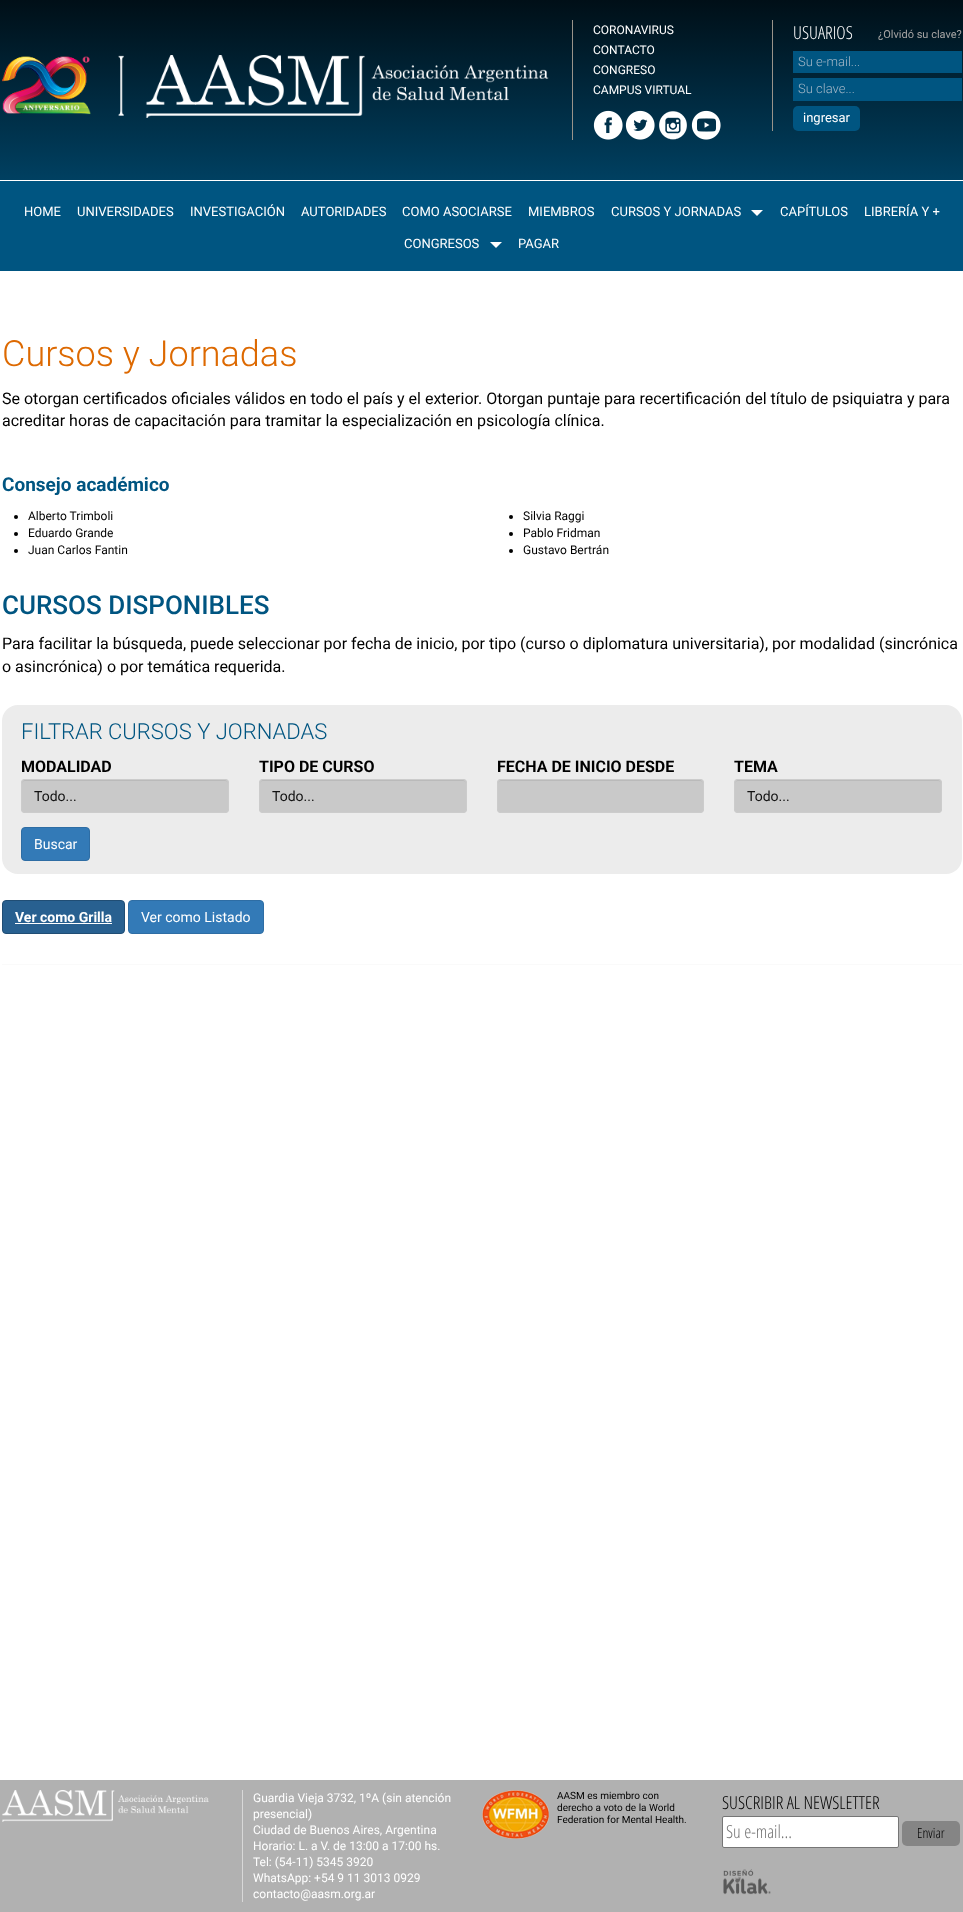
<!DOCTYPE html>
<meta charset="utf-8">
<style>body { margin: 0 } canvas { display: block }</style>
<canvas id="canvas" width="963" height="1912"></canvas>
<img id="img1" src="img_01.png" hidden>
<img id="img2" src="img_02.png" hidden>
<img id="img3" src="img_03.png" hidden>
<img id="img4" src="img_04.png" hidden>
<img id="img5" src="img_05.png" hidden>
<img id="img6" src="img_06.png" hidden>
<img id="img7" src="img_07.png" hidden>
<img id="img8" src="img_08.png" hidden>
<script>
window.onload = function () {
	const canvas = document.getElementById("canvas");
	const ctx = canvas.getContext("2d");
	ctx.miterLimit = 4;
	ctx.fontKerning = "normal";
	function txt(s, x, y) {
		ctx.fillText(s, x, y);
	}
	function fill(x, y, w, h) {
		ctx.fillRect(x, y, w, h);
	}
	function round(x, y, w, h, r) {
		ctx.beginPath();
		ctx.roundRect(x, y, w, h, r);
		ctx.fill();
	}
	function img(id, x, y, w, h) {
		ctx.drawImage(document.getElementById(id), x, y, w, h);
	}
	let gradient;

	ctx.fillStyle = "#FFFFFF";
	fill(0, 0, 963, 1912);
	gradient = ctx.createLinearGradient(482, 0, 482, 180);
	gradient.addColorStop(0, "#000F17");
	gradient.addColorStop(1, "#004061");
	ctx.fillStyle = gradient;
	fill(0, 0, 963, 180);
	img("img1", 2, 55, 547, 63);
	ctx.fillStyle = "#99938A";
	fill(572, 20, 1, 120);
	img("img2", 593, 110, 30, 30);
	img("img3", 625, 110, 30, 30);
	img("img4", 659, 111, 28, 29);
	img("img5", 691, 110, 30, 30);
	fill(772, 20, 1, 111);
	ctx.fillStyle = "#005581";
	fill(793, 51, 169, 22);
	fill(793, 78, 169, 23);
	round(793, 106, 67, 25, 5);
	fill(0, 181, 963, 90);
	ctx.fillStyle = "#FFFFFF";
	ctx.beginPath();
	ctx.moveTo(751, 210);
	ctx.lineTo(763, 210);
	ctx.lineTo(757, 216);
	ctx.closePath();
	ctx.fill();
	ctx.beginPath();
	ctx.moveTo(490, 242);
	ctx.lineTo(502, 242);
	ctx.lineTo(496, 248);
	ctx.closePath();
	ctx.fill();
	ctx.fillStyle = "#000000";
	ctx.beginPath();
	ctx.arc(16, 517, 2, 0, Math.PI * 2);
	ctx.fill();
	ctx.beginPath();
	ctx.arc(16, 534, 2, 0, Math.PI * 2);
	ctx.fill();
	ctx.beginPath();
	ctx.arc(16, 551, 2, 0, Math.PI * 2);
	ctx.fill();
	ctx.beginPath();
	ctx.arc(511, 517, 2, 0, Math.PI * 2);
	ctx.fill();
	ctx.beginPath();
	ctx.arc(511, 534, 2, 0, Math.PI * 2);
	ctx.fill();
	ctx.beginPath();
	ctx.arc(511, 551, 2, 0, Math.PI * 2);
	ctx.fill();
	ctx.fillStyle = "#ECECEC";
	round(2, 705, 960, 169, 16);
	ctx.fillStyle = "#C9C9C9";
	round(21, 779, 208, 34, 4);
	ctx.fillStyle = "#BABABA";
	ctx.beginPath();
	ctx.moveTo(25, 781);
	ctx.lineTo(225, 781);
	ctx.bezierCurveTo(227, 781, 228, 782, 228, 784);
	ctx.bezierCurveTo(228, 782, 227, 780, 225, 780);
	ctx.lineTo(24, 780);
	ctx.bezierCurveTo(22, 781, 22, 782, 22, 784);
	ctx.bezierCurveTo(22, 782, 23, 781, 25, 781);
	ctx.closePath();
	ctx.fill();
	ctx.beginPath();
	ctx.roundRect(21.5, 779.5, 207, 33, 3.5);
	ctx.strokeStyle = "#CCCCCC";
	ctx.stroke();
	ctx.fillStyle = "#C9C9C9";
	round(259, 779, 208, 34, 4);
	ctx.fillStyle = "#BABABA";
	ctx.beginPath();
	ctx.moveTo(263, 781);
	ctx.lineTo(463, 781);
	ctx.bezierCurveTo(465, 781, 466, 782, 466, 784);
	ctx.bezierCurveTo(466, 782, 465, 780, 463, 780);
	ctx.lineTo(262, 780);
	ctx.bezierCurveTo(260, 781, 260, 782, 260, 784);
	ctx.bezierCurveTo(260, 782, 261, 781, 263, 781);
	ctx.closePath();
	ctx.fill();
	ctx.beginPath();
	ctx.roundRect(259.5, 779.5, 207, 33, 3.5);
	ctx.stroke();
	ctx.fillStyle = "#C9C9C9";
	round(497, 779, 207, 34, 4);
	ctx.fillStyle = "#BABABA";
	ctx.beginPath();
	ctx.moveTo(501, 781);
	ctx.lineTo(700, 781);
	ctx.bezierCurveTo(702, 781, 703, 782, 703, 784);
	ctx.bezierCurveTo(703, 782, 702, 780, 700, 780);
	ctx.lineTo(501, 780);
	ctx.bezierCurveTo(499, 780, 498, 782, 498, 784);
	ctx.bezierCurveTo(498, 782, 499, 781, 501, 781);
	ctx.closePath();
	ctx.fill();
	ctx.beginPath();
	ctx.roundRect(497.5, 779.5, 206, 33, 3.5);
	ctx.stroke();
	ctx.fillStyle = "#C9C9C9";
	round(734, 779, 208, 34, 4);
	ctx.fillStyle = "#BABABA";
	ctx.beginPath();
	ctx.moveTo(738, 781);
	ctx.lineTo(938, 781);
	ctx.bezierCurveTo(940, 781, 941, 782, 941, 784);
	ctx.bezierCurveTo(941, 782, 940, 780, 938, 780);
	ctx.lineTo(737, 780);
	ctx.bezierCurveTo(735, 781, 735, 782, 735, 784);
	ctx.bezierCurveTo(735, 782, 736, 781, 738, 781);
	ctx.closePath();
	ctx.fill();
	ctx.beginPath();
	ctx.roundRect(734.5, 779.5, 207, 33, 3.5);
	ctx.stroke();
	ctx.fillStyle = "#337AB7";
	ctx.beginPath();
	ctx.roundRect(21.5, 827.5, 68, 33, 3.5);
	ctx.fill();
	ctx.strokeStyle = "#2E6DA4";
	ctx.stroke();
	ctx.fillStyle = "#286090";
	ctx.beginPath();
	ctx.roundRect(2.5, 900.5, 122, 33, 3.5);
	ctx.fill();
	ctx.strokeStyle = "#204D74";
	ctx.stroke();
	ctx.fillStyle = "#FFFFFF";
	fill(15, 923, 97, 1);
	ctx.fillStyle = "#337AB7";
	ctx.beginPath();
	ctx.roundRect(128.5, 900.5, 135, 33, 3.5);
	ctx.fill();
	ctx.strokeStyle = "#2E6DA4";
	ctx.stroke();
	ctx.fillStyle = "#FAFAFA";
	fill(2, 964, 960, 1);
	ctx.fillStyle = "#B1B1B1";
	fill(0, 1780, 963, 132);
	img("img6", 2, 1790, 207, 32);
	ctx.fillStyle = "#D8D8D8";
	fill(242, 1790, 1, 112);
	img("img7", 482, 1790, 67, 49);
	ctx.fillStyle = "#FFFFFF";
	ctx.beginPath();
	ctx.roundRect(722.5, 1816.5, 176, 31, 1.5);
	ctx.fill();
	ctx.strokeStyle = "#767676";
	ctx.stroke();
	ctx.fillStyle = "#858585";
	round(902, 1821, 58, 25, 5);
	img("img8", 723, 1869, 48, 26);
	ctx.font = "12px Roboto";
	ctx.fillStyle = "#FFFFFF";
	txt("CORONAVIRUS", 593, 34);
	txt("CONTACTO", 593, 54);
	txt("CONGRESO", 593, 74);
	txt("CAMPUS VIRTUAL", 593, 94);
	ctx.font = "300 18px Open Sans Condensed";
	txt("USUARIOS", 793, 39);
	ctx.font = "11px Roboto";
	ctx.fillStyle = "#A6A5A4";
	txt("¿Olvidó su clave?", 878, 38);
	ctx.font = "300 13px Roboto";
	ctx.fillStyle = "#A3B7C7";
	txt("Su e-mail...", 798, 66);
	txt("Su clave...", 798, 93);
	ctx.font = "13px Roboto";
	ctx.fillStyle = "#FFFFFF";
	txt("ingresar", 803, 122);
	txt("HOME", 24, 216);
	txt("UNIVERSIDADES", 77, 216);
	txt("INVESTIGACIÓN", 190, 216);
	txt("AUTORIDADES", 301, 216);
	txt("COMO ASOCIARSE", 402, 216);
	txt("MIEMBROS", 528, 216);
	txt("CURSOS Y JORNADAS", 611, 216);
	txt("CAPÍTULOS", 780, 216);
	txt("LIBRERÍA Y +", 864, 216);
	txt("CONGRESOS", 404, 248);
	txt("PAGAR", 518, 248);
	ctx.font = "300 36px Roboto";
	ctx.fillStyle = "#DD6901";
	txt("Cursos y Jornadas", 2, 366);
	ctx.font = "16px Roboto";
	ctx.fillStyle = "#000000";
	txt("Se otorgan certificados oficiales válidos en todo el país y el exterior. Otorgan puntaje para recertificación del título de psiquiatra y para", 2, 404);
	txt("acreditar horas de capacitación para tramitar la especialización en psicología clínica.", 2, 426);
	ctx.font = "bold 19px Roboto";
	ctx.fillStyle = "#005581";
	txt("Consejo académico", 2, 491);
	ctx.font = "12px Roboto";
	ctx.fillStyle = "#000000";
	txt("Alberto Trimboli", 28, 520);
	txt("Eduardo Grande", 28, 537);
	txt("Juan Carlos Fantin", 28, 554);
	txt("Silvia Raggi", 523, 520);
	txt("Pablo Fridman", 523, 537);
	txt("Gustavo Bertrán", 523, 554);
	ctx.font = "500 26px Roboto";
	ctx.fillStyle = "#005581";
	txt("CURSOS DISPONIBLES", 2, 614);
	ctx.font = "16px Roboto";
	ctx.fillStyle = "#000000";
	txt("Para facilitar la búsqueda, puede seleccionar por fecha de inicio, por tipo (curso o diplomatura universitaria), por modalidad (sincrónica", 2, 649);
	txt("o asincrónica) o por temática requerida.", 2, 672);
	ctx.font = "300 22px Roboto";
	ctx.fillStyle = "#005581";
	txt("FILTRAR CURSOS Y JORNADAS", 21, 739);
	ctx.font = "bold 16px Roboto";
	ctx.fillStyle = "#000000";
	txt("MODALIDAD", 21, 772);
	ctx.font = "14px Roboto";
	ctx.fillStyle = "#111111";
	txt("Todo...", 34, 801);
	ctx.font = "bold 16px Roboto";
	ctx.fillStyle = "#000000";
	txt("TIPO DE CURSO", 259, 772);
	ctx.font = "14px Roboto";
	ctx.fillStyle = "#111111";
	txt("Todo...", 272, 801);
	ctx.font = "bold 16px Roboto";
	ctx.fillStyle = "#000000";
	txt("FECHA DE INICIO DESDE", 497, 772);
	txt("TEMA", 734, 772);
	ctx.font = "14px Roboto";
	ctx.fillStyle = "#111111";
	txt("Todo...", 747, 801);
	ctx.fillStyle = "#FFFFFF";
	txt("Buscar", 34, 849);
	ctx.font = "bold 14px Roboto";
	txt("Ver como Grilla", 15, 922);
	ctx.font = "14px Roboto";
	txt("Ver como Listado", 141, 922);
	ctx.font = "12px Roboto";
	txt("Guardia Vieja 3732, 1ºA (sin atención", 253, 1802);
	txt("presencial)", 253, 1818);
	txt("Ciudad de Buenos Aires, Argentina", 253, 1834);
	txt("Horario: L. a V. de 13:00 a 17:00 hs.", 253, 1850);
	txt("Tel: (54-11) 5345 3920", 253, 1866);
	txt("WhatsApp: +54 9 11 3013 0929", 253, 1882);
	txt("contacto@aasm.org.ar", 253, 1898);
	ctx.font = "10px Roboto";
	ctx.fillStyle = "#000000";
	txt("AASM es miembro con", 557, 1799);
	txt("derecho a voto de la World", 557, 1811);
	txt("Federation for Mental Health.", 557, 1823);
	ctx.font = "300 18px Open Sans Condensed";
	txt("SUSCRIBIR AL NEWSLETTER", 722, 1809);
	ctx.fillStyle = "#757575";
	txt("Su e-mail...", 726, 1838);
	ctx.font = "300 14px Open Sans Condensed";
	ctx.fillStyle = "#000000";
	txt("Enviar", 917, 1838);
};
</script>
